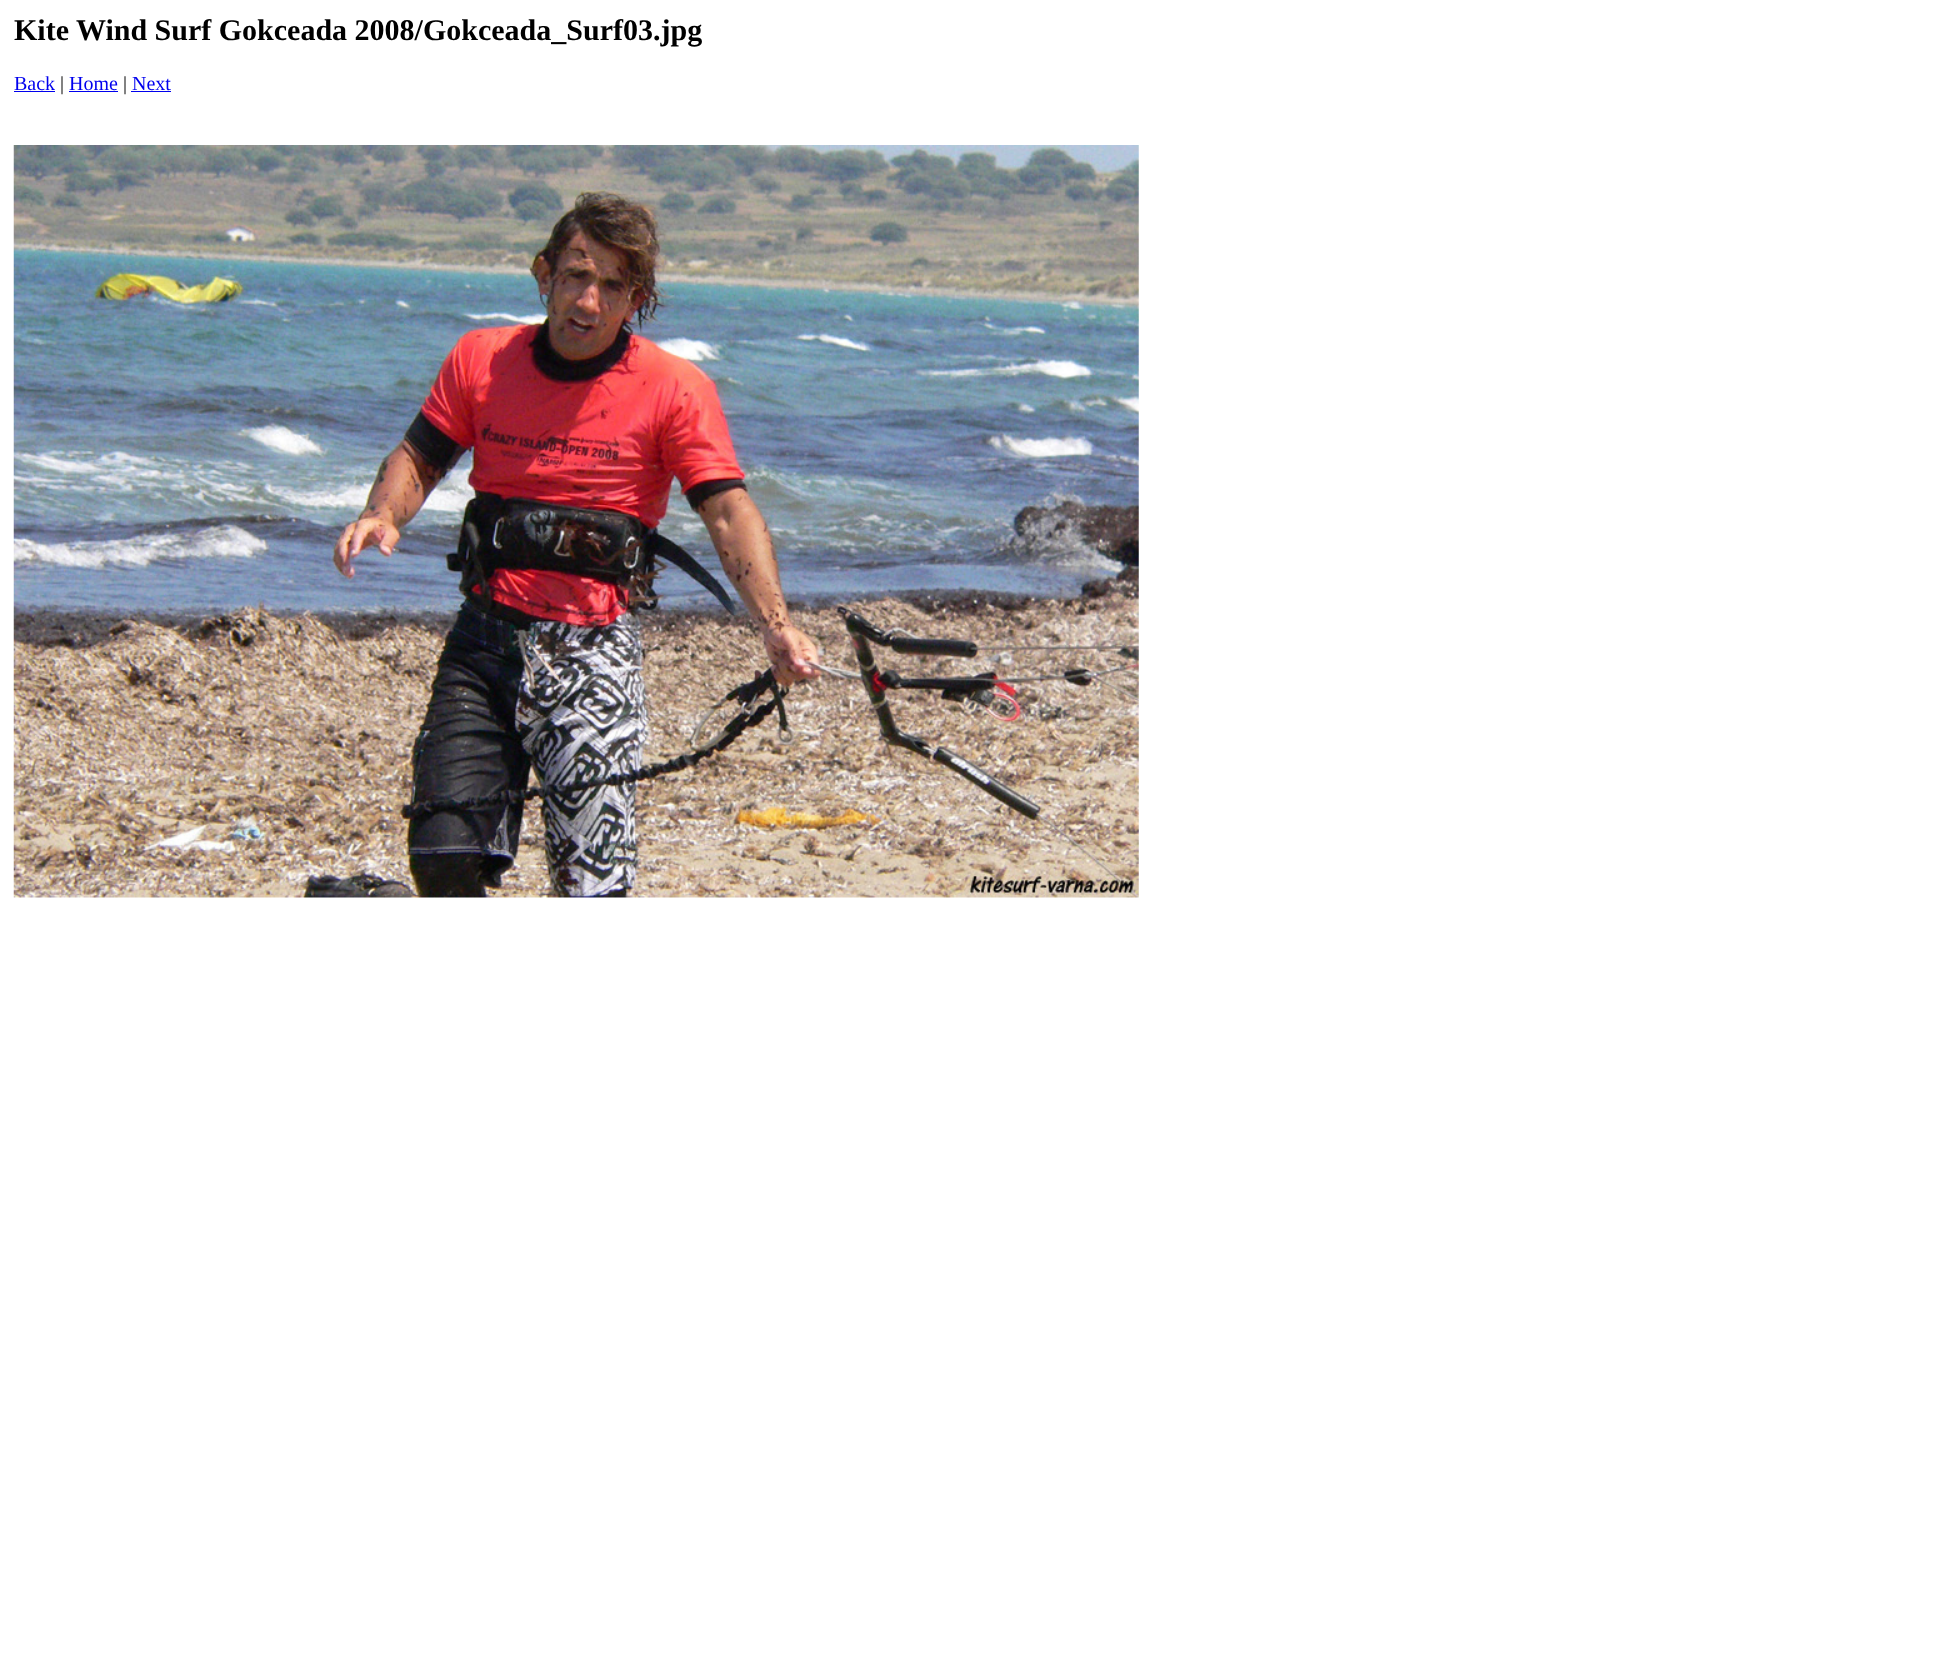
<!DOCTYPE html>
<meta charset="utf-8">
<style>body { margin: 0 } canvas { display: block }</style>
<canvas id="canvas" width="1954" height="1676"></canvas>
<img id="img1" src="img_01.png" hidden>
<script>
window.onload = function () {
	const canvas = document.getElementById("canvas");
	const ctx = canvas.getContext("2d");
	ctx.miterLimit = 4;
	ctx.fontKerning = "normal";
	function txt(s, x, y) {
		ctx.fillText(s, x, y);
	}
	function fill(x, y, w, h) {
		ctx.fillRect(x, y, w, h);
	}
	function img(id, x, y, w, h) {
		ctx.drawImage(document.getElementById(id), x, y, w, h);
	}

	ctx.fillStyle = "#FFFFFF";
	fill(0, 0, 1954, 1676);
	ctx.fillStyle = "#0000EE";
	fill(14, 91, 41, 1);
	fill(69, 91, 49, 1);
	fill(131, 91, 40, 1);
	img("img1", 13, 145, 1126, 753);
	ctx.font = "bold 30px Liberation Serif";
	ctx.fillStyle = "#000000";
	txt("Kite Wind Surf Gokceada 2008/Gokceada_Surf03.jpg", 14, 40);
	ctx.font = "20px Liberation Serif";
	ctx.fillStyle = "#0000EE";
	txt("Back", 14, 90);
	ctx.fillStyle = "#000000";
	txt("|", 60, 90);
	ctx.fillStyle = "#0000EE";
	txt("Home", 69, 90);
	ctx.fillStyle = "#000000";
	txt("|", 123, 90);
	ctx.fillStyle = "#0000EE";
	txt("Next", 132, 90);
};
</script>
